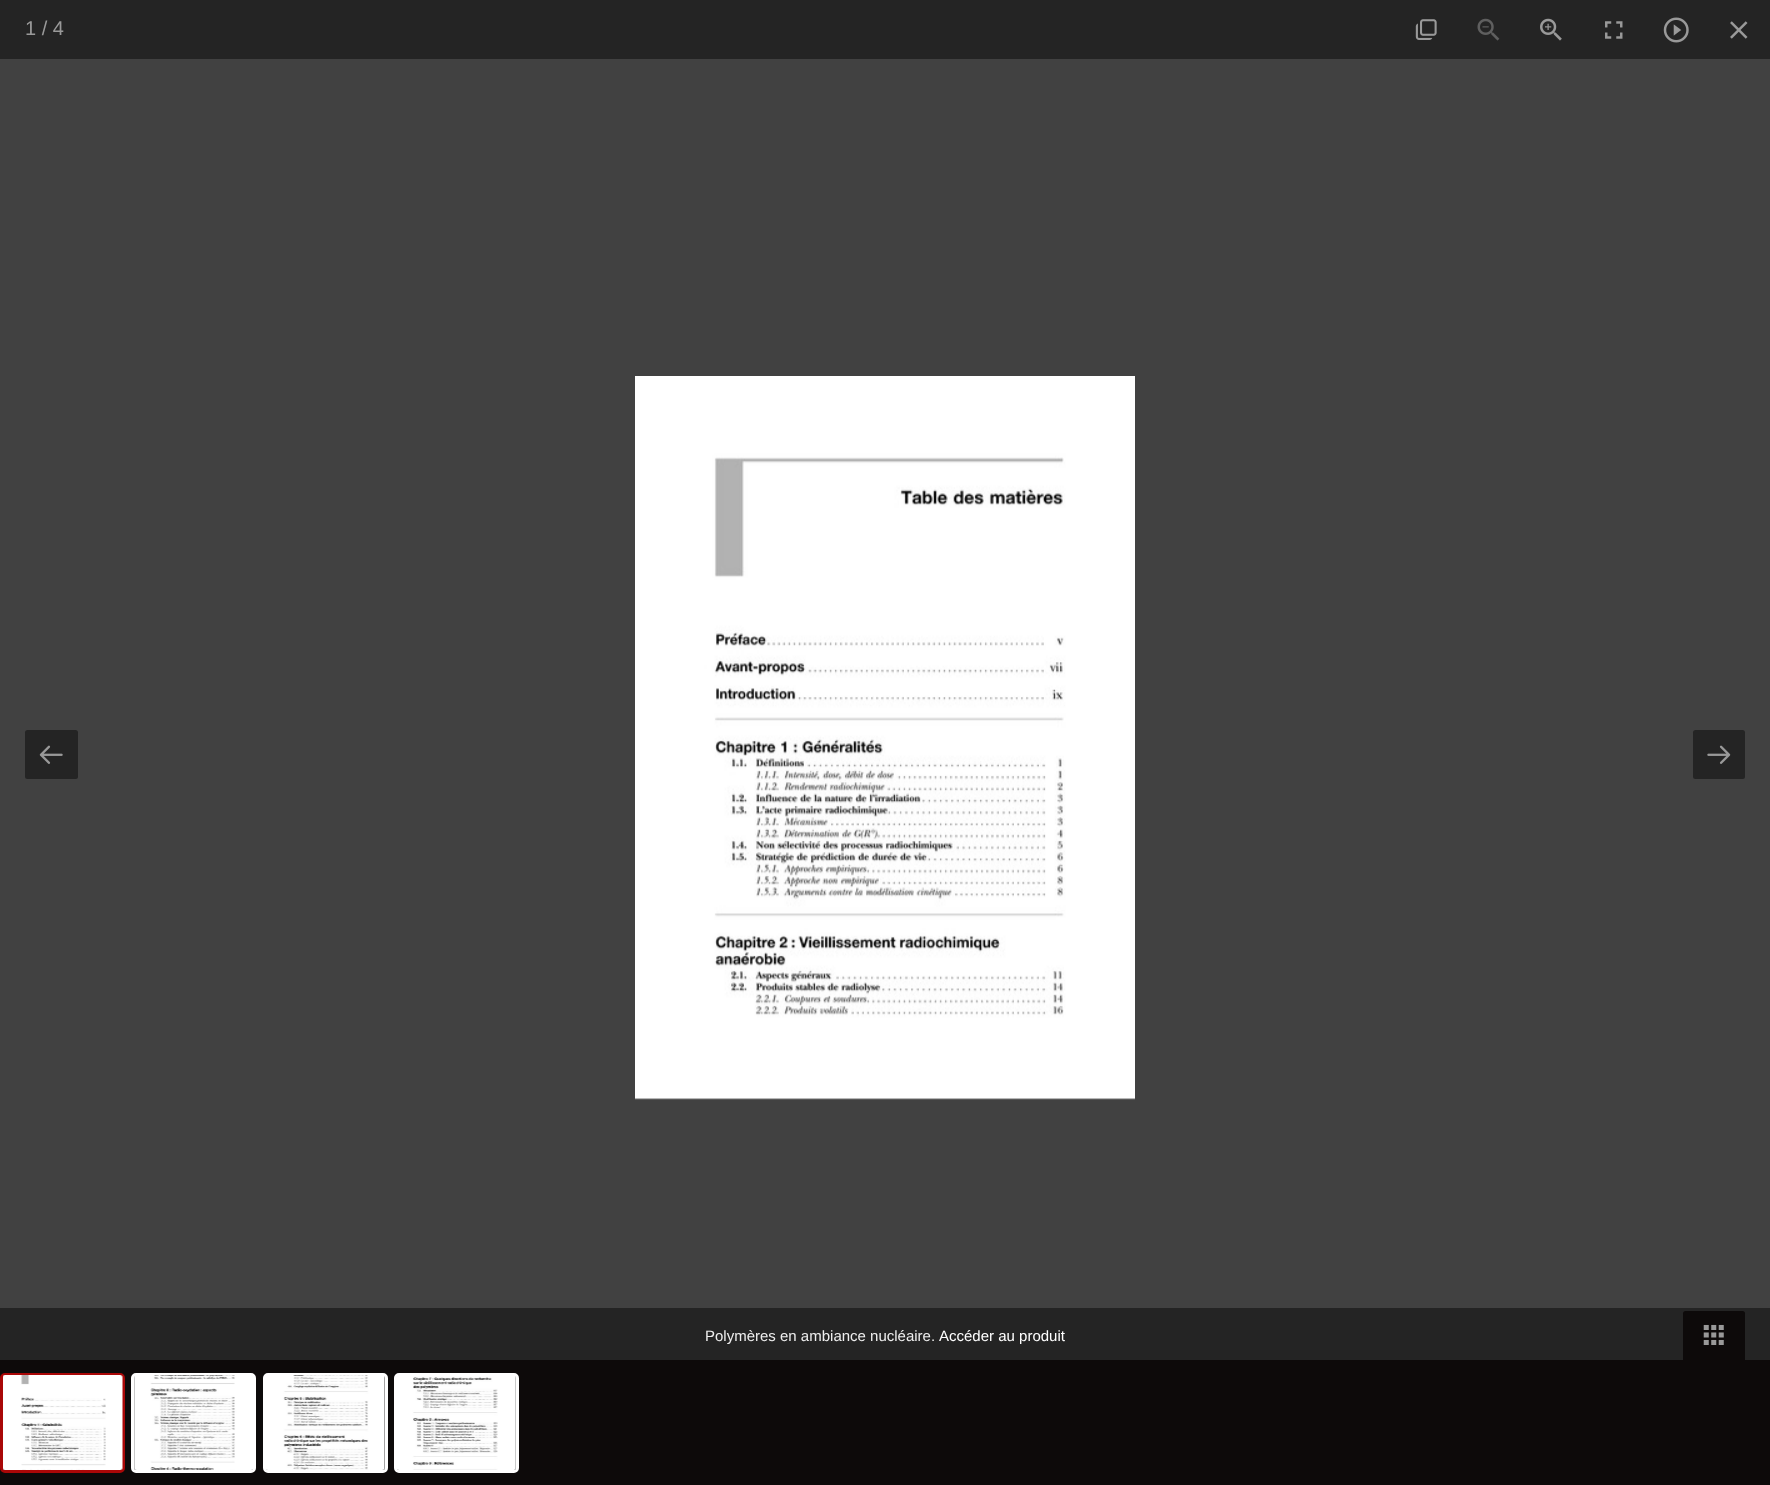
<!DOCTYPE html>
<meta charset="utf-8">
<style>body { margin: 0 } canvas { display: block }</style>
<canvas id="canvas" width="1770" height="1485"></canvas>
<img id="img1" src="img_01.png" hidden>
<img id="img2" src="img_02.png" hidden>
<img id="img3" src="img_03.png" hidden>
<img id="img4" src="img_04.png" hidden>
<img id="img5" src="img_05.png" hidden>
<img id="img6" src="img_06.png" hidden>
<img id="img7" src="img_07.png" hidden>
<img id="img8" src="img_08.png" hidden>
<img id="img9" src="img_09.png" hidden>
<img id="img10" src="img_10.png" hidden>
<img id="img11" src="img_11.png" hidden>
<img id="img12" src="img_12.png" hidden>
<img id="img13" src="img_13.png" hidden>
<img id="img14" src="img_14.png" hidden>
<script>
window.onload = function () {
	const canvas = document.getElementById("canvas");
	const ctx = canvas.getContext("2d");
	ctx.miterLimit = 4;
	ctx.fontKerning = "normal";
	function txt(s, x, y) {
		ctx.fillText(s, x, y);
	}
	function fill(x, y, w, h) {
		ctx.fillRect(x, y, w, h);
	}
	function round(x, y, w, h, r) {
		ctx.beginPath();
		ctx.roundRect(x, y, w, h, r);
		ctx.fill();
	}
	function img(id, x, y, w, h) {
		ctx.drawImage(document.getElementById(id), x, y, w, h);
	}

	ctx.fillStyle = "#414141";
	fill(0, 0, 1770, 1485);
	ctx.fillStyle = "#242424";
	fill(0, 0, 1770, 59);
	img("img1", 1415, 19, 22, 21);
	img("img2", 1477, 18, 23, 23);
	img("img3", 1540, 18, 22, 23);
	img("img4", 1605, 21, 18, 18);
	img("img5", 1663, 17, 26, 26);
	img("img6", 1730, 21, 18, 18);
	img("img7", 635, 376, 500, 724);
	round(25, 730, 53, 49, 2.5);
	img("img8", 39, 745, 24, 19);
	round(1693, 730, 52, 49, 2.5);
	img("img9", 1707, 745, 24, 19);
	ctx.fillStyle = "#0D0A0A";
	fill(0, 1360, 1770, 125);
	ctx.fillStyle = "#242424";
	fill(0, 1308, 1770, 52);
	ctx.fillStyle = "#0D0A0A";
	ctx.beginPath();
	ctx.roundRect(1683, 1311, 62, 49, [2.5, 2.5, 0, 0]);
	ctx.fill();
	img("img10", 1703, 1324, 21, 21);
	ctx.beginPath();
	ctx.roundRect(1.5, 1374.5, 122, 97, 3.5);
	ctx.strokeStyle = "#A90707";
	ctx.lineWidth = 3;
	ctx.stroke();
	img("img11", 3, 1375, 120, 95);
	ctx.beginPath();
	ctx.roundRect(132.5, 1374.5, 122, 97, 3.5);
	ctx.strokeStyle = "#FFFFFF";
	ctx.stroke();
	img("img12", 134, 1375, 119, 95);
	ctx.beginPath();
	ctx.roundRect(264.5, 1374.5, 122, 97, 3.5);
	ctx.stroke();
	img("img13", 266, 1375, 119, 95);
	ctx.beginPath();
	ctx.roundRect(395.5, 1374.5, 122, 97, 3.5);
	ctx.stroke();
	img("img14", 397, 1376, 119, 94);
	ctx.font = "20px Liberation Sans";
	ctx.fillStyle = "#999999";
	txt("1 / 4", 25, 35);
	ctx.font = "15px Liberation Sans";
	ctx.fillStyle = "#EEEEEE";
	txt("Polymères en ambiance nucléaire.", 705, 1341);
	ctx.fillStyle = "#FFFFFF";
	txt("Accéder au produit", 939, 1341);
};
</script>
